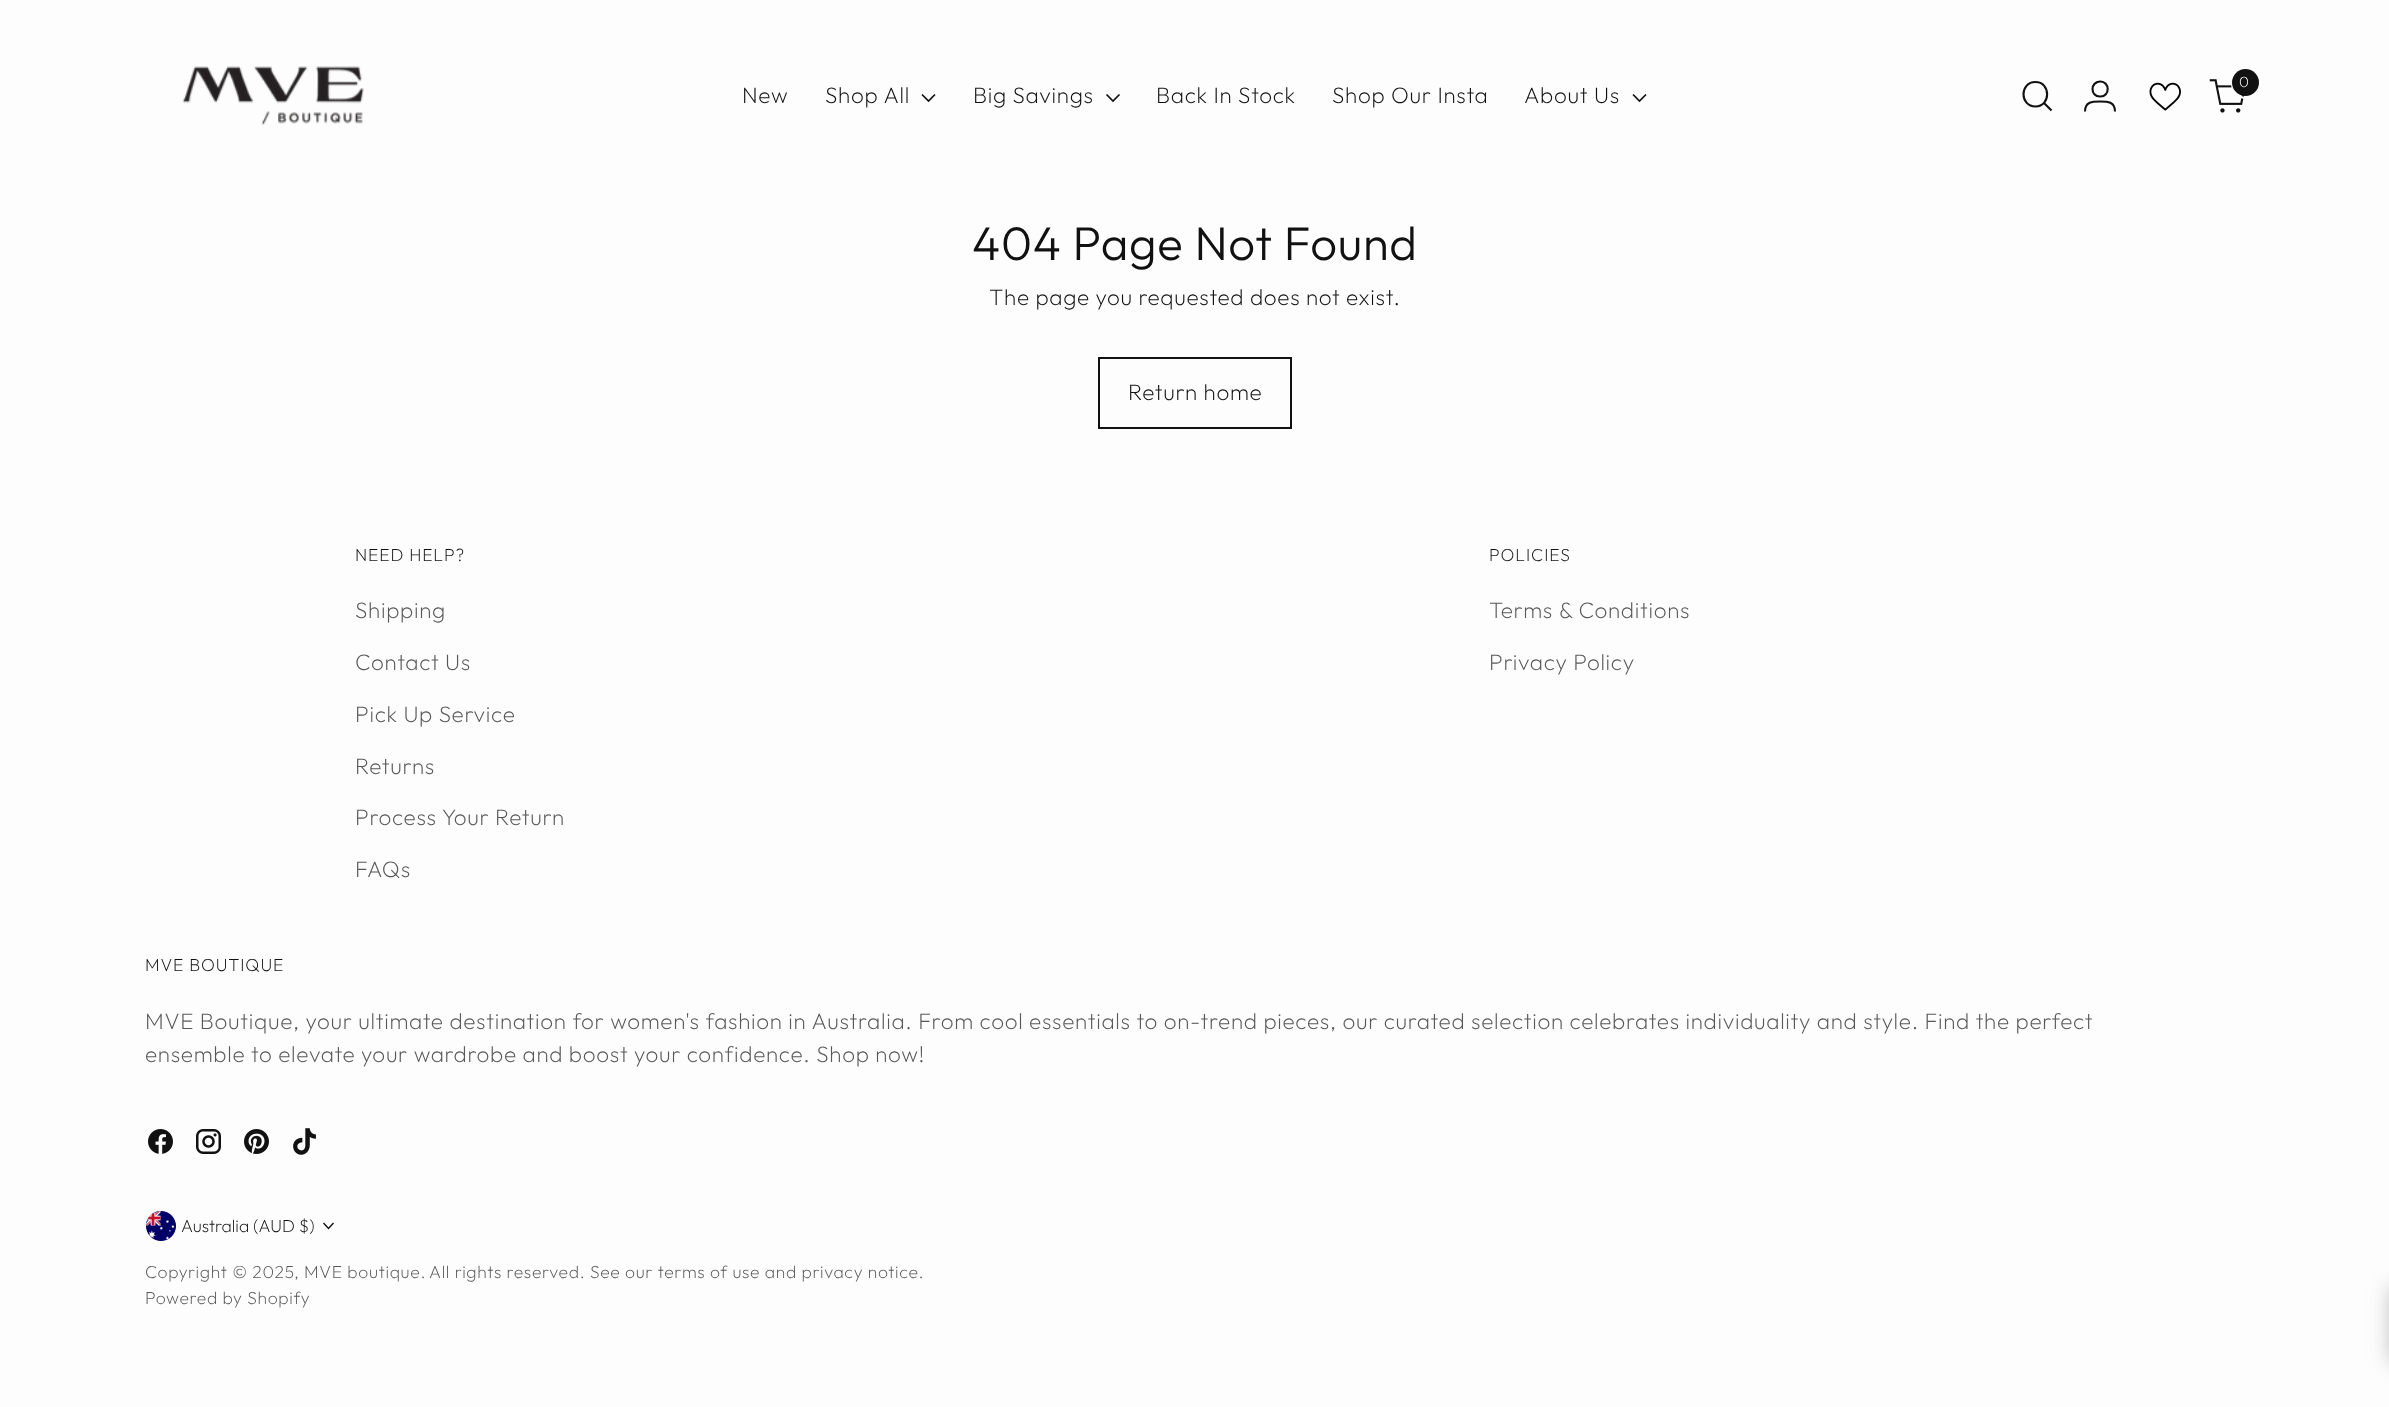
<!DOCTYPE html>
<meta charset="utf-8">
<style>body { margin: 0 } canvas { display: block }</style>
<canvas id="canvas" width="2389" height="1407"></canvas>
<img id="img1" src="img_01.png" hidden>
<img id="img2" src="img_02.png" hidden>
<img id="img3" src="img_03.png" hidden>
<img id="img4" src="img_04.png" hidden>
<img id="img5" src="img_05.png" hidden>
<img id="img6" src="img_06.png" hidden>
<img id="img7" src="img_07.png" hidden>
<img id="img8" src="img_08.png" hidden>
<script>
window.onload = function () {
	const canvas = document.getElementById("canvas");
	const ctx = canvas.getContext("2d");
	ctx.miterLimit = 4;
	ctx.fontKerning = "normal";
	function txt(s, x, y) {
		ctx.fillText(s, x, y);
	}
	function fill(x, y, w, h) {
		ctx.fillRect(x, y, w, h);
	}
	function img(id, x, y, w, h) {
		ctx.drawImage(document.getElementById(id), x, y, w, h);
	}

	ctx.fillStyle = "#FDFDFD";
	fill(0, 0, 2389, 1407);
	img("img1", 182, 66, 182, 60);
	ctx.beginPath();
	ctx.moveTo(2035.5, 106.5);
	ctx.bezierCurveTo(2051, 106.5, 2051, 82, 2035.5, 82);
	ctx.bezierCurveTo(2019.5, 82, 2019.5, 106.5, 2035.5, 106.5);
	ctx.closePath();
	ctx.strokeStyle = "#111111";
	ctx.lineWidth = 2.1;
	ctx.lineCap = "round";
	ctx.stroke();
	ctx.beginPath();
	ctx.moveTo(2044, 103);
	ctx.lineTo(2051.5, 110.5);
	ctx.lineCap = "butt";
	ctx.stroke();
	ctx.beginPath();
	ctx.moveTo(2100, 96.5);
	ctx.bezierCurveTo(2110.5, 97, 2110, 81, 2100, 81.5);
	ctx.bezierCurveTo(2090, 82, 2090, 96.5, 2100, 96.5);
	ctx.closePath();
	ctx.moveTo(2085, 111.5);
	ctx.bezierCurveTo(2085, 101.5, 2092.5, 101.5, 2100, 101.5);
	ctx.bezierCurveTo(2107.5, 101.5, 2115, 101.5, 2115, 111.5);
	ctx.stroke();
	img("img2", 2149, 82, 32, 29);
	img("img3", 2209, 79, 35, 34);
	ctx.beginPath();
	ctx.arc(2246.5, 83.5, 14.5, 0, Math.PI * 2);
	ctx.strokeStyle = "#FDFDFD";
	ctx.lineWidth = 2;
	ctx.stroke();
	ctx.fillStyle = "#111111";
	ctx.beginPath();
	ctx.arc(2245.5, 82.5, 13.5, 0, Math.PI * 2);
	ctx.fill();
	ctx.beginPath();
	ctx.moveTo(922, 94.5);
	ctx.lineTo(928.5, 101);
	ctx.lineTo(935, 94.5);
	ctx.strokeStyle = "#111111";
	ctx.lineWidth = 1.7;
	ctx.stroke();
	ctx.beginPath();
	ctx.moveTo(1106.5, 94.5);
	ctx.lineTo(1113, 101);
	ctx.lineTo(1119.5, 94.5);
	ctx.stroke();
	ctx.beginPath();
	ctx.moveTo(1633, 94.5);
	ctx.lineTo(1639.5, 101);
	ctx.lineTo(1646, 94.5);
	ctx.stroke();
	ctx.lineWidth = 2;
	ctx.strokeRect(1099, 358, 192, 70);
	img("img4", 148, 1129, 25, 25);
	img("img5", 196, 1129, 25, 25);
	img("img6", 244, 1129, 25, 25);
	img("img7", 293, 1128, 23, 27);
	img("img8", 146, 1211, 30, 30);
	ctx.beginPath();
	ctx.moveTo(323.5, 1223);
	ctx.lineTo(328.5, 1228.5);
	ctx.lineTo(333.5, 1223);
	ctx.lineWidth = 1.4;
	ctx.stroke();
	ctx.fillStyle = "rgba(117, 117, 117, 0.5)";
	ctx.filter = "blur(10.5px)";
	ctx.beginPath();
	ctx.rect(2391, 1287, 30, 75);
	ctx.fill();
	ctx.filter = "none";
	ctx.letterSpacing = "0.68px";
	ctx.font = "200 15px Outfit";
	ctx.fillStyle = "#FDFDFD";
	txt("0", 2239, 87);
	ctx.font = "200 22.5px Outfit";
	ctx.fillStyle = "#111111";
	txt("New", 742, 103);
	txt("Shop All", 825, 103);
	txt("Big Savings", 973, 103);
	txt("Back In Stock", 1156, 103);
	txt("Shop Our Insta", 1332, 103);
	txt("About Us", 1524, 103);
	ctx.letterSpacing = "0.75px";
	ctx.font = "300 47.25px Outfit";
	txt("404 Page Not Found", 972, 260);
	ctx.letterSpacing = "0.68px";
	ctx.font = "200 22.5px Outfit";
	txt("The page you requested does not exist.", 989, 305);
	txt("Return home", 1128, 400);
	ctx.letterSpacing = "0.9px";
	ctx.font = "200 17.5px Outfit";
	txt("NEED HELP?", 355, 561);
	ctx.letterSpacing = "0.68px";
	ctx.font = "200 22.5px Outfit";
	ctx.fillStyle = "#585858";
	txt("Shipping", 355, 618);
	txt("Contact Us", 355, 670);
	txt("Pick Up Service", 355, 722);
	txt("Returns", 355, 774);
	txt("Process Your Return", 355, 825);
	txt("FAQs", 355, 877);
	ctx.letterSpacing = "0.9px";
	ctx.font = "200 17.5px Outfit";
	ctx.fillStyle = "#111111";
	txt("POLICIES", 1489, 561);
	ctx.letterSpacing = "0.68px";
	ctx.font = "200 22.5px Outfit";
	ctx.fillStyle = "#585858";
	txt("Terms & Conditions", 1489, 618);
	txt("Privacy Policy", 1489, 670);
	ctx.letterSpacing = "0.9px";
	ctx.font = "200 17.5px Outfit";
	ctx.fillStyle = "#111111";
	txt("MVE BOUTIQUE", 145, 971);
	ctx.letterSpacing = "0.68px";
	ctx.font = "200 22.5px Outfit";
	ctx.fillStyle = "#585858";
	txt("MVE Boutique, your ultimate destination for women's fashion in Australia. From cool essentials to on-trend pieces, our curated selection celebrates individuality and style. Find the perfect", 145, 1029);
	txt("ensemble to elevate your wardrobe and boost your confidence. Shop now!", 145, 1062);
	ctx.letterSpacing = "0px";
	ctx.font = "200 17.5px Outfit";
	ctx.fillStyle = "#111111";
	txt("Australia (AUD $)", 181, 1232);
	ctx.letterSpacing = "0.68px";
	ctx.fillStyle = "#585858";
	txt("Copyright © 2025, MVE boutique.", 145, 1278);
	txt("All rights reserved. See our terms of use and privacy notice.", 429, 1278);
	txt("Powered by Shopify", 145, 1304);
};
</script>
